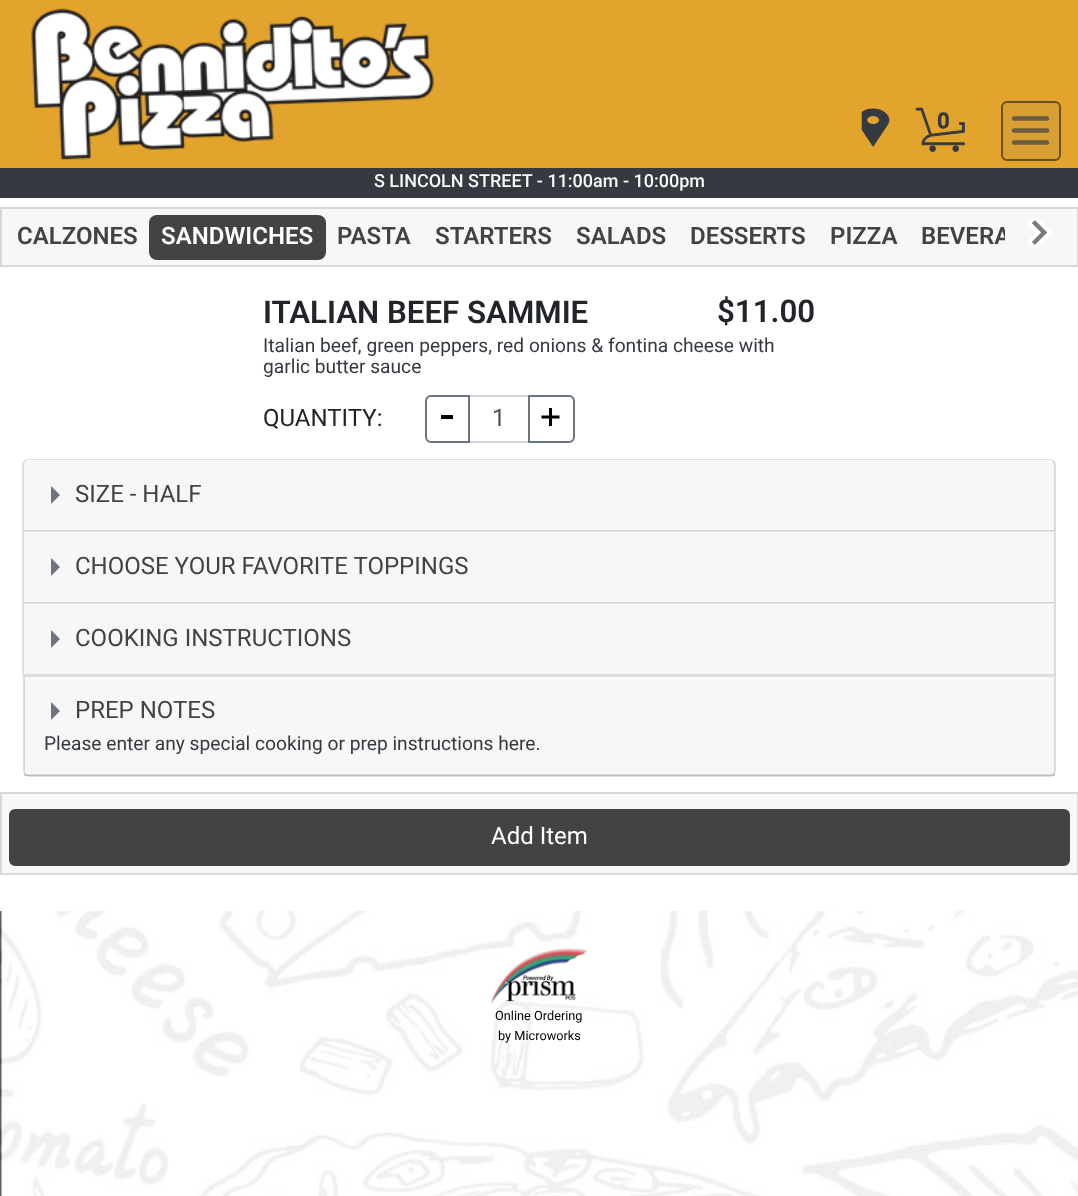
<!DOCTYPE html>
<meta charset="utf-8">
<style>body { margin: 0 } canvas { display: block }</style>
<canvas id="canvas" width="1078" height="1196"></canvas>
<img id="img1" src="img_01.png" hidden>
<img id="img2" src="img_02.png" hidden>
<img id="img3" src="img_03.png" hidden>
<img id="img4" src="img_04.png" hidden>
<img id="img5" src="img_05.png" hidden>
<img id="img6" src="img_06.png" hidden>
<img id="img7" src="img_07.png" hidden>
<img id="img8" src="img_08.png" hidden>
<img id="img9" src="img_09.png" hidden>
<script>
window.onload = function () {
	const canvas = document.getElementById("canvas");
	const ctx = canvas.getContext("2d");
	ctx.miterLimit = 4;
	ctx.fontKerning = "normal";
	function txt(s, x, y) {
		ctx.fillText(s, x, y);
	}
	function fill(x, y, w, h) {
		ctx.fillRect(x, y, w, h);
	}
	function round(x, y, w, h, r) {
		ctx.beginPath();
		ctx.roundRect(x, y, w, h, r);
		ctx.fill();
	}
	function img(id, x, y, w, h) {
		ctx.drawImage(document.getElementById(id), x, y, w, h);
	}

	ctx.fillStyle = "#FFFFFF";
	fill(0, 0, 1078, 1196);
	img("img1", 0, 911, 1078, 285);
	ctx.fillStyle = "#E2A42C";
	fill(0, 0, 1078, 168);
	img("img2", 31, 8, 403, 152);
	img("img3", 861, 108, 29, 39);
	img("img4", 915, 107, 50, 45);
	ctx.fillStyle = "#D8A034";
	ctx.beginPath();
	ctx.roundRect(1002, 102, 58, 58, 5);
	ctx.fill();
	ctx.strokeStyle = "#6C501A";
	ctx.lineWidth = 2;
	ctx.stroke();
	img("img5", 1011, 116, 39, 29);
	ctx.fillStyle = "#343A40";
	fill(0, 168, 1078, 30);
	ctx.fillStyle = "#F7F7F7";
	ctx.beginPath();
	ctx.rect(1, 208, 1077, 58);
	ctx.fill();
	ctx.strokeStyle = "#D8D8D8";
	ctx.stroke();
	ctx.fillStyle = "#424342";
	round(149, 215, 177, 45, 8);
	img("img6", 1027, 218, 25, 29);
	ctx.strokeStyle = "#CED4DA";
	ctx.strokeRect(469, 396, 60, 46);
	ctx.beginPath();
	ctx.roundRect(426, 396, 43, 46, [5, 0, 0, 5]);
	ctx.strokeStyle = "#6C757D";
	ctx.stroke();
	ctx.fillStyle = "#000000";
	fill(441, 415, 12, 4);
	ctx.beginPath();
	ctx.roundRect(529, 396, 45, 46, [0, 5, 5, 0]);
	ctx.stroke();
	img("img7", 541, 408, 19, 18);
	ctx.fillStyle = "#DFDFDF";
	ctx.beginPath();
	ctx.moveTo(28, 459);
	ctx.lineTo(1050, 459);
	ctx.bezierCurveTo(1053, 459, 1056, 462, 1056, 465);
	ctx.lineTo(1056, 531);
	ctx.lineTo(22, 531);
	ctx.lineTo(22, 465);
	ctx.bezierCurveTo(22, 462, 25, 459, 28, 459);
	ctx.closePath();
	ctx.moveTo(28, 460);
	ctx.lineTo(1050, 460);
	ctx.bezierCurveTo(1052, 460, 1054, 463, 1054, 465);
	ctx.lineTo(1054, 531);
	ctx.lineTo(24, 531);
	ctx.lineTo(24, 465);
	ctx.bezierCurveTo(24, 463, 26, 460, 28, 460);
	ctx.closePath();
	ctx.fill("evenodd");
	ctx.fillStyle = "rgba(0, 0, 0, 0.03)";
	fill(24, 461, 1031, 70);
	ctx.fillStyle = "rgba(0, 0, 0, 0.12)";
	fill(24, 530, 1031, 1);
	img("img8", 51, 486, 9, 18);
	ctx.fillStyle = "#DFDFDF";
	ctx.beginPath();
	ctx.moveTo(22, 531);
	ctx.lineTo(1056, 531);
	ctx.lineTo(1054, 532);
	ctx.lineTo(24, 532);
	ctx.closePath();
	ctx.fill();
	ctx.fillStyle = "rgba(0, 0, 0, 0.12)";
	ctx.beginPath();
	ctx.moveTo(1056, 531);
	ctx.lineTo(1056, 603);
	ctx.lineTo(1054, 603);
	ctx.lineTo(1054, 532);
	ctx.closePath();
	ctx.fill();
	ctx.beginPath();
	ctx.moveTo(22, 603);
	ctx.lineTo(22, 531);
	ctx.lineTo(24, 532);
	ctx.lineTo(24, 603);
	ctx.closePath();
	ctx.fill();
	ctx.fillStyle = "rgba(0, 0, 0, 0.03)";
	fill(24, 533, 1031, 70);
	ctx.fillStyle = "rgba(0, 0, 0, 0.12)";
	fill(24, 602, 1031, 1);
	img("img8", 51, 558, 9, 18);
	ctx.fillStyle = "#DFDFDF";
	ctx.beginPath();
	ctx.moveTo(22, 603);
	ctx.lineTo(1056, 603);
	ctx.lineTo(1054, 604);
	ctx.lineTo(24, 604);
	ctx.closePath();
	ctx.fill();
	ctx.fillStyle = "rgba(0, 0, 0, 0.12)";
	ctx.beginPath();
	ctx.moveTo(1056, 603);
	ctx.lineTo(1056, 675);
	ctx.lineTo(1054, 675);
	ctx.lineTo(1054, 604);
	ctx.closePath();
	ctx.fill();
	ctx.beginPath();
	ctx.moveTo(22, 675);
	ctx.lineTo(22, 603);
	ctx.lineTo(24, 604);
	ctx.lineTo(24, 675);
	ctx.closePath();
	ctx.fill();
	ctx.fillStyle = "rgba(0, 0, 0, 0.03)";
	fill(24, 605, 1031, 70);
	ctx.fillStyle = "rgba(0, 0, 0, 0.12)";
	fill(24, 674, 1031, 1);
	img("img8", 51, 630, 9, 18);
	ctx.beginPath();
	ctx.roundRect(24, 676, 1031, 100, [0, 0, 5, 5]);
	ctx.strokeStyle = "#DFDFDF";
	ctx.stroke();
	ctx.fillStyle = "rgba(0, 0, 0, 0.03)";
	fill(24, 677, 1031, 99);
	ctx.fillStyle = "rgba(0, 0, 0, 0.12)";
	fill(24, 774, 1031, 2);
	img("img8", 51, 702, 9, 18);
	ctx.fillStyle = "#F8F8F8";
	ctx.beginPath();
	ctx.rect(1, 793, 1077, 81);
	ctx.fill();
	ctx.strokeStyle = "#D9D9D9";
	ctx.stroke();
	ctx.fillStyle = "#424342";
	ctx.beginPath();
	ctx.roundRect(10, 810, 1059, 55, 5);
	ctx.fill();
	ctx.strokeStyle = "#424342";
	ctx.stroke();
	img("img9", 490, 948, 98, 56);
	ctx.font = "500 18px Roboto";
	ctx.fillStyle = "#F8F9FA";
	txt("S LINCOLN STREET - 11:00am - 10:00pm", 374, 187);
	ctx.font = "600 24px Roboto";
	ctx.fillStyle = "#424342";
	txt("CALZONES", 17, 244);
	ctx.fillStyle = "#FFFFFF";
	txt("SANDWICHES", 161, 244);
	ctx.fillStyle = "#424342";
	txt("PASTA", 337, 244);
	txt("STARTERS", 435, 244);
	txt("SALADS", 576, 244);
	txt("DESSERTS", 690, 244);
	txt("PIZZA", 830, 244);
	ctx.save();
	ctx.beginPath();
	ctx.rect(5, 215, 1000, 48);
	ctx.clip();
	txt("BEVERA", 921, 244);
	ctx.restore();
	ctx.font = "600 31.25px Roboto";
	ctx.fillStyle = "#212529";
	txt("ITALIAN BEEF SAMMIE", 263, 323);
	txt("$11.00", 717, 322);
	ctx.font = "19.2px Roboto";
	ctx.fillStyle = "#343A40";
	txt("Italian beef, green peppers, red onions & fontina cheese with", 263, 352);
	txt("garlic butter sauce", 263, 373);
	ctx.font = "24px Roboto";
	ctx.fillStyle = "#212529";
	txt("QUANTITY:", 263, 426);
	ctx.fillStyle = "#495057";
	txt("1", 492, 426);
	ctx.fillStyle = "#424342";
	txt("SIZE - HALF", 75, 502);
	txt("CHOOSE YOUR FAVORITE TOPPINGS", 75, 574);
	txt("COOKING INSTRUCTIONS", 75, 646);
	txt("PREP NOTES", 75, 718);
	ctx.font = "19.2px Roboto";
	ctx.fillStyle = "#343A40";
	txt("Please enter any special cooking or prep instructions here.", 44, 750);
	ctx.font = "24px Roboto";
	ctx.fillStyle = "#FFFFFF";
	txt("Add Item", 491, 844);
	ctx.font = "12.75px Roboto";
	ctx.fillStyle = "#000000";
	txt("Online Ordering", 495, 1020);
	txt("by Microworks", 498, 1040);
};
</script>
